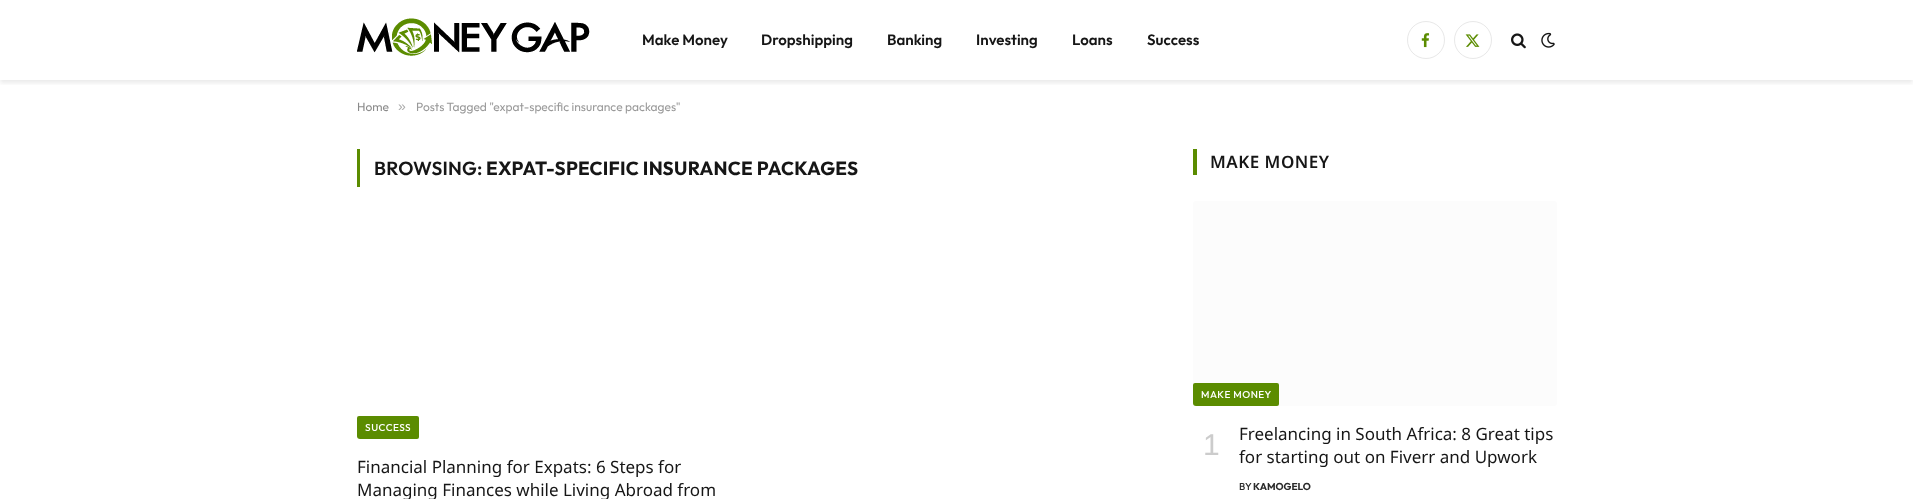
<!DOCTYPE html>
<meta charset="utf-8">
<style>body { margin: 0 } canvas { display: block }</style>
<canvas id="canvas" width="1913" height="499"></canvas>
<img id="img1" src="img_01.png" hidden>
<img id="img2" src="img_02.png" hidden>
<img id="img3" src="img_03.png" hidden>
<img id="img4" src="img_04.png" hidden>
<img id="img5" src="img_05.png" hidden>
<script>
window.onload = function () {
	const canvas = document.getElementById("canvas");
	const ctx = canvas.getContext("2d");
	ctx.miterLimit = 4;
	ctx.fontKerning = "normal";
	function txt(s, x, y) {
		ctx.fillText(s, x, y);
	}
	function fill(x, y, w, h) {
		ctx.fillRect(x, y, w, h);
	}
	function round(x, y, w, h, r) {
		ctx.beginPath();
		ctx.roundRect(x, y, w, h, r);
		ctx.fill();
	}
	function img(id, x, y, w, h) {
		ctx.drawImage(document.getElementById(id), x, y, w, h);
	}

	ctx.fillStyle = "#FFFFFF";
	fill(0, 0, 1913, 499);
	ctx.save();
	ctx.beginPath();
	ctx.rect(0, 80, 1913, 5);
	ctx.clip();
	ctx.fillStyle = "rgba(114, 114, 114, 0.15)";
	ctx.filter = "blur(2px)";
	ctx.beginPath();
	ctx.rect(0, 3, 1913, 80);
	ctx.fill();
	ctx.filter = "none";
	ctx.restore();
	img("img1", 357, 18, 233, 38);
	ctx.beginPath();
	ctx.arc(1426, 40, 18.5, 0, Math.PI * 2);
	ctx.strokeStyle = "#E8E8E8";
	ctx.stroke();
	img("img2", 1421, 33, 9, 15);
	ctx.beginPath();
	ctx.arc(1473, 40, 18.5, 0, Math.PI * 2);
	ctx.stroke();
	img("img3", 1465, 34, 15, 13);
	img("img4", 1511, 33, 15, 16);
	img("img5", 1541, 32, 14, 16);
	ctx.fillStyle = "#5B8C00";
	fill(357, 149, 3, 38);
	ctx.beginPath();
	ctx.roundRect(357, 416, 62, 23, [2, 2, 2, 3]);
	ctx.fill();
	fill(1193, 149, 4, 26);
	ctx.fillStyle = "#FCFCFC";
	round(1193, 201, 364, 205, 3);
	ctx.fillStyle = "#5B8C00";
	ctx.beginPath();
	ctx.roundRect(1193, 383, 86, 23, [2, 2, 2, 3]);
	ctx.fill();
	ctx.font = "600 15px Outfit";
	ctx.fillStyle = "#161616";
	txt("Make Money", 642, 45);
	txt("Dropshipping", 761, 45);
	txt("Banking", 887, 45);
	txt("Investing", 976, 45);
	txt("Loans", 1072, 45);
	txt("Success", 1147, 45);
	ctx.font = "12px Outfit";
	ctx.fillStyle = "#8A8A8A";
	txt("Home", 357, 111);
	ctx.font = "14px Liberation Sans";
	ctx.fillStyle = "#ADADAD";
	txt("»", 398, 111);
	ctx.font = "12px Outfit";
	ctx.fillStyle = "#999999";
	txt("Posts Tagged \"expat-specific insurance packages\"", 416, 111);
	ctx.letterSpacing = "0.2px";
	ctx.font = "600 19px Outfit";
	ctx.fillStyle = "#161616";
	txt("BROWSING:", 374, 175);
	ctx.font = "bold 19px Outfit";
	txt("EXPAT-SPECIFIC INSURANCE PACKAGES", 486, 175);
	ctx.letterSpacing = "0.5px";
	ctx.font = "500 10px Outfit";
	ctx.fillStyle = "#FFFFFF";
	txt("SUCCESS", 365, 431);
	ctx.letterSpacing = "0px";
	ctx.font = "17px Noto Sans";
	ctx.fillStyle = "#161616";
	txt("Financial Planning for Expats: 6 Steps for", 357, 473);
	txt("Managing Finances while Living Abroad from", 357, 496);
	ctx.letterSpacing = "0.5px";
	ctx.font = "600 17px Noto Sans";
	txt("MAKE MONEY", 1210, 168);
	ctx.font = "500 10px Outfit";
	ctx.fillStyle = "#FFFFFF";
	txt("MAKE MONEY", 1201, 398);
	ctx.letterSpacing = "0px";
	ctx.font = "30px Liberation Sans";
	ctx.fillStyle = "#CCCCCC";
	txt("1", 1203, 455);
	ctx.font = "17px Noto Sans";
	ctx.fillStyle = "#161616";
	txt("Freelancing in South Africa: 8 Great tips", 1239, 440);
	txt("for starting out on Fiverr and Upwork", 1239, 463);
	ctx.font = "500 10px Outfit";
	ctx.fillStyle = "#2B2B2B";
	txt("BY", 1239, 490);
	ctx.font = "bold 10px Outfit";
	txt("KAMOGELO", 1253, 490);
};
</script>
